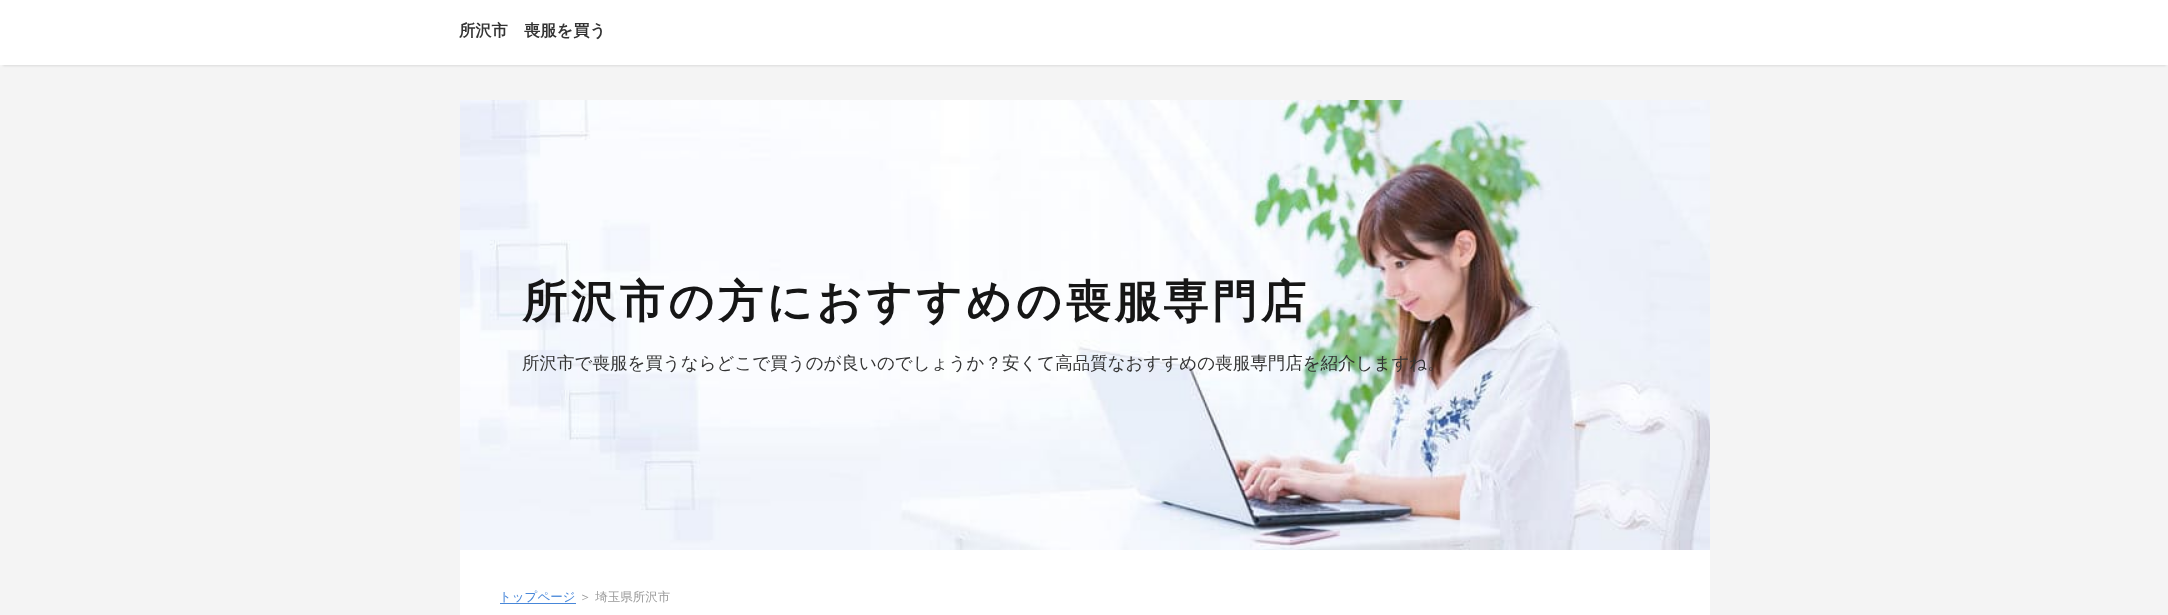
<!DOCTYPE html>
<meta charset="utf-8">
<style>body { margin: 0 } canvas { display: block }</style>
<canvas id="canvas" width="2168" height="615"></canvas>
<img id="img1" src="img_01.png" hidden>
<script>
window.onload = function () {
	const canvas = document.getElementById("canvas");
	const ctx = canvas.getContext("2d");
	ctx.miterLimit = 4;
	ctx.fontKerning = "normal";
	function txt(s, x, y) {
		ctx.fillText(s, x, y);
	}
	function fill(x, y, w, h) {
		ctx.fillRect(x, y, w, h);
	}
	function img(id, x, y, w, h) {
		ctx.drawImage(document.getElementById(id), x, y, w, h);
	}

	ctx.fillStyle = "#F4F4F4";
	fill(0, 0, 2168, 615);
	ctx.fillStyle = "rgba(0, 0, 0, 0.1)";
	ctx.filter = "blur(1px)";
	ctx.beginPath();
	ctx.rect(3, 6, 2163, 60);
	ctx.fill();
	ctx.filter = "none";
	ctx.fillStyle = "#FFFFFF";
	fill(0, 0, 2168, 65);
	img("img1", 460, 100, 1250, 450);
	fill(460, 550, 1250, 65);
	ctx.fillStyle = "#4887D9";
	fill(500, 603, 76, 1);
	ctx.font = "bold 16.25px WenQuanYi Zen Hei";
	ctx.fillStyle = "#333333";
	txt("所沢市　喪服を買う", 459, 36);
	ctx.letterSpacing = "3.75px";
	ctx.font = "bold 45px WenQuanYi Zen Hei";
	ctx.fillStyle = "#161616";
	txt("所沢市の方におすすめの喪服専門店", 522, 317);
	ctx.letterSpacing = "0px";
	ctx.font = "500 17.5px WenQuanYi Zen Hei";
	ctx.fillStyle = "#333333";
	txt("所沢市で喪服を買うならどこで買うのが良いのでしょうか？安くて高品質なおすすめの喪服専門店を紹介しますね。", 522, 369);
	ctx.font = "500 12.5px WenQuanYi Zen Hei";
	ctx.fillStyle = "#4887D9";
	txt("トップページ", 499, 601);
	ctx.fillStyle = "#999999";
	txt("＞ 埼玉県所沢市", 579, 601);
};
</script>
